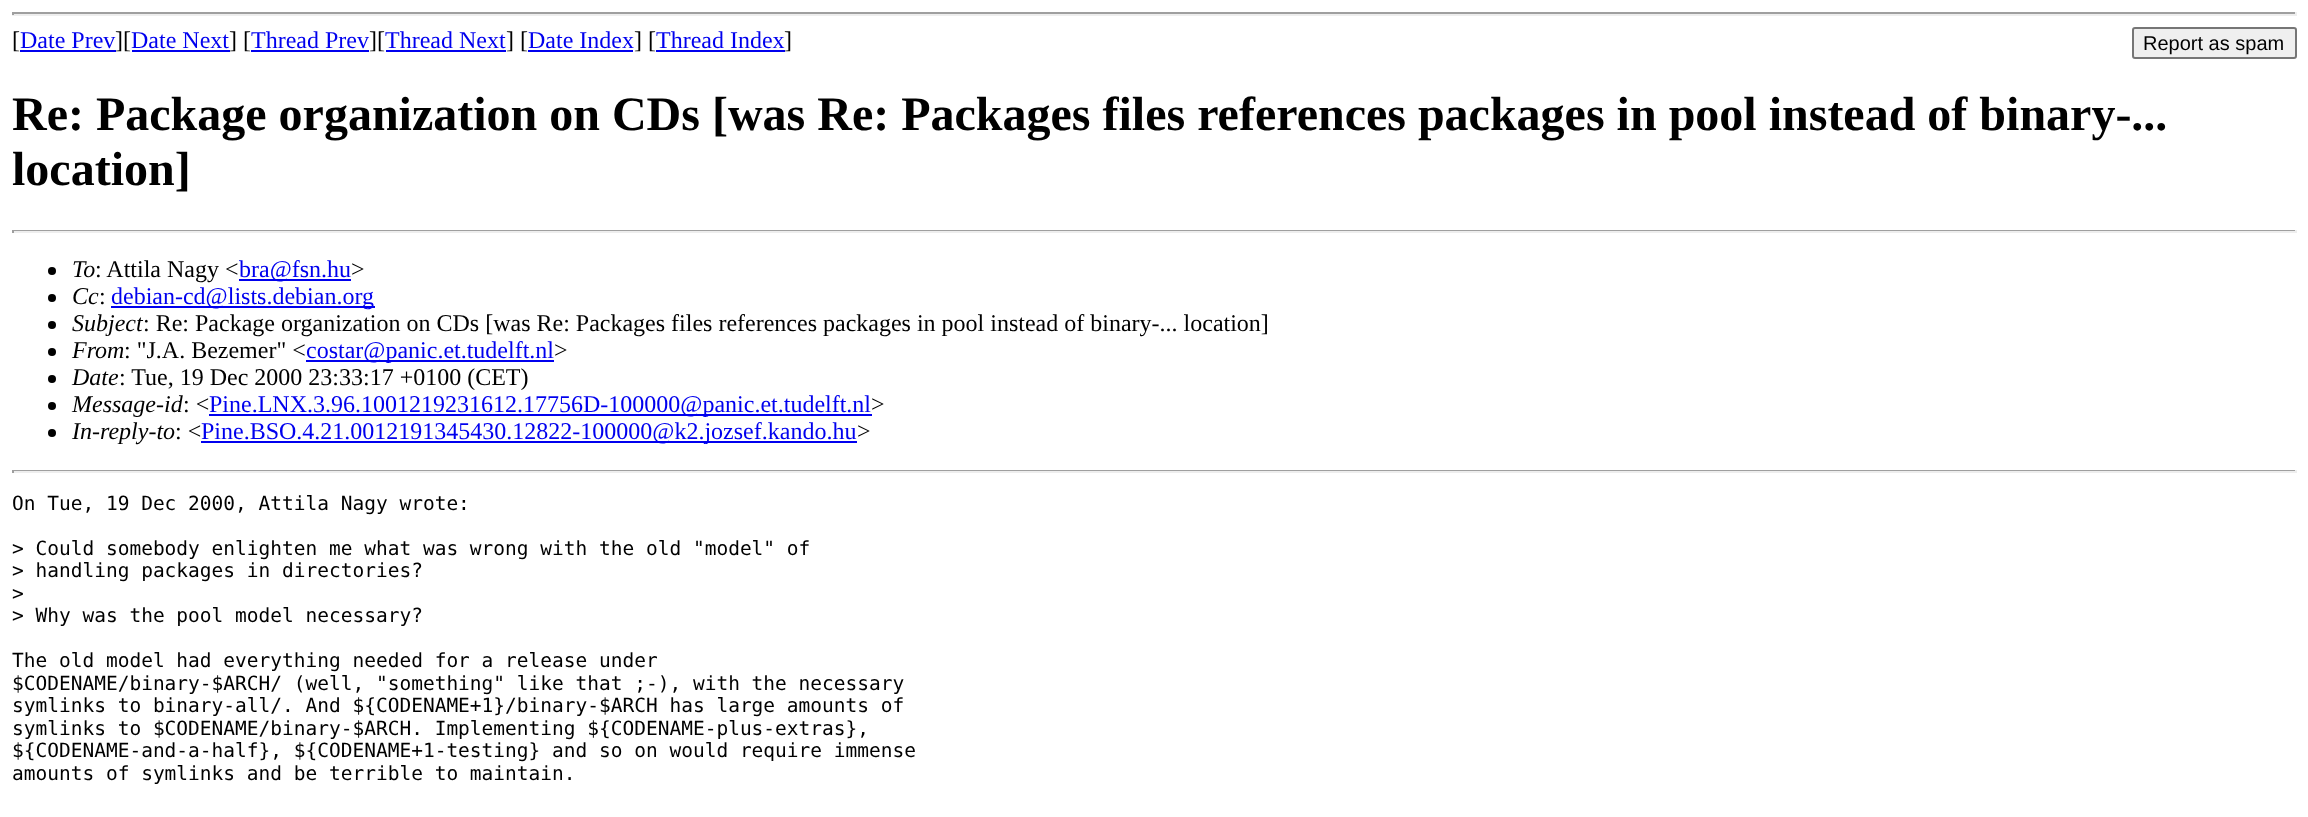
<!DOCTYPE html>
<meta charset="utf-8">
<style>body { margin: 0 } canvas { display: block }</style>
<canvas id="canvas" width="2308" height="817"></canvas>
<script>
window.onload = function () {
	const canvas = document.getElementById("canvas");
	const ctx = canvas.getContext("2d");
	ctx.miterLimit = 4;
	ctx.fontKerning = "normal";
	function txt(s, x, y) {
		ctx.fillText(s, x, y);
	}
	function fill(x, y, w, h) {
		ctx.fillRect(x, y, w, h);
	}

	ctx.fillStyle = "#FFFFFF";
	fill(0, 0, 2308, 817);
	ctx.fillStyle = "#9F9F9F";
	fill(12, 12, 2285, 2);
	ctx.fillStyle = "#EEEEEE";
	fill(2295, 12, 2, 3);
	fill(12, 14, 2285, 2);
	ctx.fillStyle = "#9F9F9F";
	fill(12, 12, 2, 3);
	ctx.fillStyle = "#0000EE";
	fill(20, 50, 96, 2);
	fill(132, 50, 98, 2);
	fill(251, 50, 118, 2);
	fill(386, 50, 120, 2);
	fill(528, 50, 105, 2);
	fill(656, 50, 129, 2);
	ctx.fillStyle = "#EFEFEF";
	ctx.beginPath();
	ctx.roundRect(2133, 28, 163, 30, 2);
	ctx.fill();
	ctx.strokeStyle = "#767676";
	ctx.lineWidth = 2;
	ctx.stroke();
	ctx.fillStyle = "#9F9F9F";
	fill(12, 230, 2285, 1);
	ctx.fillStyle = "#EEEEEE";
	fill(2295, 230, 2, 3);
	fill(12, 231, 2285, 2);
	ctx.fillStyle = "#9F9F9F";
	fill(12, 230, 2, 3);
	ctx.fillStyle = "#000000";
	ctx.beginPath();
	ctx.arc(52, 271, 4, 0, Math.PI * 2);
	ctx.fill();
	ctx.fillStyle = "#0000EE";
	fill(239, 279, 112, 2);
	ctx.fillStyle = "#000000";
	ctx.beginPath();
	ctx.arc(52, 298, 4, 0, Math.PI * 2);
	ctx.fill();
	ctx.fillStyle = "#0000EE";
	fill(111, 306, 264, 2);
	ctx.fillStyle = "#000000";
	ctx.beginPath();
	ctx.arc(52, 325, 4, 0, Math.PI * 2);
	ctx.fill();
	ctx.beginPath();
	ctx.arc(52, 352, 4, 0, Math.PI * 2);
	ctx.fill();
	ctx.fillStyle = "#0000EE";
	fill(306, 360, 248, 2);
	ctx.fillStyle = "#000000";
	ctx.beginPath();
	ctx.arc(52, 379, 4, 0, Math.PI * 2);
	ctx.fill();
	ctx.beginPath();
	ctx.arc(52, 406, 4, 0, Math.PI * 2);
	ctx.fill();
	ctx.fillStyle = "#0000EE";
	fill(209, 414, 663, 2);
	ctx.fillStyle = "#000000";
	ctx.beginPath();
	ctx.arc(52, 433, 4, 0, Math.PI * 2);
	ctx.fill();
	ctx.fillStyle = "#0000EE";
	fill(201, 441, 656, 2);
	ctx.fillStyle = "#9F9F9F";
	fill(12, 470, 2285, 1);
	ctx.fillStyle = "#EEEEEE";
	fill(2295, 470, 2, 3);
	fill(12, 471, 2285, 2);
	ctx.fillStyle = "#9F9F9F";
	fill(12, 470, 2, 3);
	ctx.font = "24px Liberation Serif";
	ctx.fillStyle = "#000000";
	txt("[", 12, 48);
	ctx.fillStyle = "#0000EE";
	txt("Date Prev", 20, 48);
	ctx.fillStyle = "#000000";
	txt("][", 115, 48);
	ctx.fillStyle = "#0000EE";
	txt("Date Next", 131, 48);
	ctx.fillStyle = "#000000";
	txt("] [", 229, 48);
	ctx.fillStyle = "#0000EE";
	txt("Thread Prev", 251, 48);
	ctx.fillStyle = "#000000";
	txt("][", 369, 48);
	ctx.fillStyle = "#0000EE";
	txt("Thread Next", 385, 48);
	ctx.fillStyle = "#000000";
	txt("] [", 506, 48);
	ctx.fillStyle = "#0000EE";
	txt("Date Index", 528, 48);
	ctx.fillStyle = "#000000";
	txt("] [", 634, 48);
	ctx.fillStyle = "#0000EE";
	txt("Thread Index", 656, 48);
	ctx.fillStyle = "#000000";
	txt("]", 784, 48);
	ctx.font = "20px Liberation Sans";
	txt("Report as spam", 2143, 50);
	ctx.font = "bold 48px Liberation Serif";
	txt("Re: Package organization on CDs [was Re: Packages files references packages in pool instead of binary-...", 12, 130);
	txt("location]", 12, 185);
	ctx.font = "italic 24px Liberation Serif";
	txt("To", 72, 277);
	ctx.font = "24px Liberation Serif";
	txt(": Attila Nagy <", 95, 277);
	ctx.fillStyle = "#0000EE";
	txt("bra@fsn.hu", 239, 277);
	ctx.fillStyle = "#000000";
	txt(">", 351, 277);
	ctx.font = "italic 24px Liberation Serif";
	txt("Cc", 72, 304);
	ctx.font = "24px Liberation Serif";
	txt(":", 99, 304);
	ctx.fillStyle = "#0000EE";
	txt("debian-cd@lists.debian.org", 111, 304);
	ctx.font = "italic 24px Liberation Serif";
	ctx.fillStyle = "#000000";
	txt("Subject", 72, 331);
	ctx.font = "24px Liberation Serif";
	txt(": Re: Package organization on CDs [was Re: Packages files references packages in pool instead of binary-... location]", 143, 331);
	ctx.font = "italic 24px Liberation Serif";
	txt("From", 72, 358);
	ctx.font = "24px Liberation Serif";
	txt(": \"J.A. Bezemer\" <", 124, 358);
	ctx.fillStyle = "#0000EE";
	txt("costar@panic.et.tudelft.nl", 306, 358);
	ctx.fillStyle = "#000000";
	txt(">", 554, 358);
	ctx.font = "italic 24px Liberation Serif";
	txt("Date", 72, 385);
	ctx.font = "24px Liberation Serif";
	txt(": Tue, 19 Dec 2000 23:33:17 +0100 (CET)", 119, 385);
	ctx.font = "italic 24px Liberation Serif";
	txt("Message-id", 72, 412);
	ctx.font = "24px Liberation Serif";
	txt(": <", 183, 412);
	ctx.fillStyle = "#0000EE";
	txt("Pine.LNX.3.96.1001219231612.17756D-100000@panic.et.tudelft.nl", 209, 412);
	ctx.fillStyle = "#000000";
	txt(">", 871, 412);
	ctx.font = "italic 24px Liberation Serif";
	txt("In-reply-to", 72, 439);
	ctx.font = "24px Liberation Serif";
	txt(": <", 175, 439);
	ctx.fillStyle = "#0000EE";
	txt("Pine.BSO.4.21.0012191345430.12822-100000@k2.jozsef.kando.hu", 201, 439);
	ctx.fillStyle = "#000000";
	txt(">", 857, 439);
	ctx.font = "19.5px DejaVu Sans Mono";
	txt("On Tue, 19 Dec 2000, Attila Nagy wrote:", 12, 510);
	txt("> Could somebody enlighten me what was wrong with the old \"model\" of", 12, 555);
	txt("> handling packages in directories?", 12, 577);
	txt(">", 12, 600);
	txt("> Why was the pool model necessary?", 12, 622);
	txt("The old model had everything needed for a release under", 12, 667);
	txt("$CODENAME/binary-$ARCH/ (well, \"something\" like that ;-), with the necessary", 12, 690);
	txt("symlinks to binary-all/. And ${CODENAME+1}/binary-$ARCH has large amounts of", 12, 712);
	txt("symlinks to $CODENAME/binary-$ARCH. Implementing ${CODENAME-plus-extras},", 12, 735);
	txt("${CODENAME-and-a-half}, ${CODENAME+1-testing} and so on would require immense", 12, 757);
	txt("amounts of symlinks and be terrible to maintain.", 12, 780);
};
</script>
